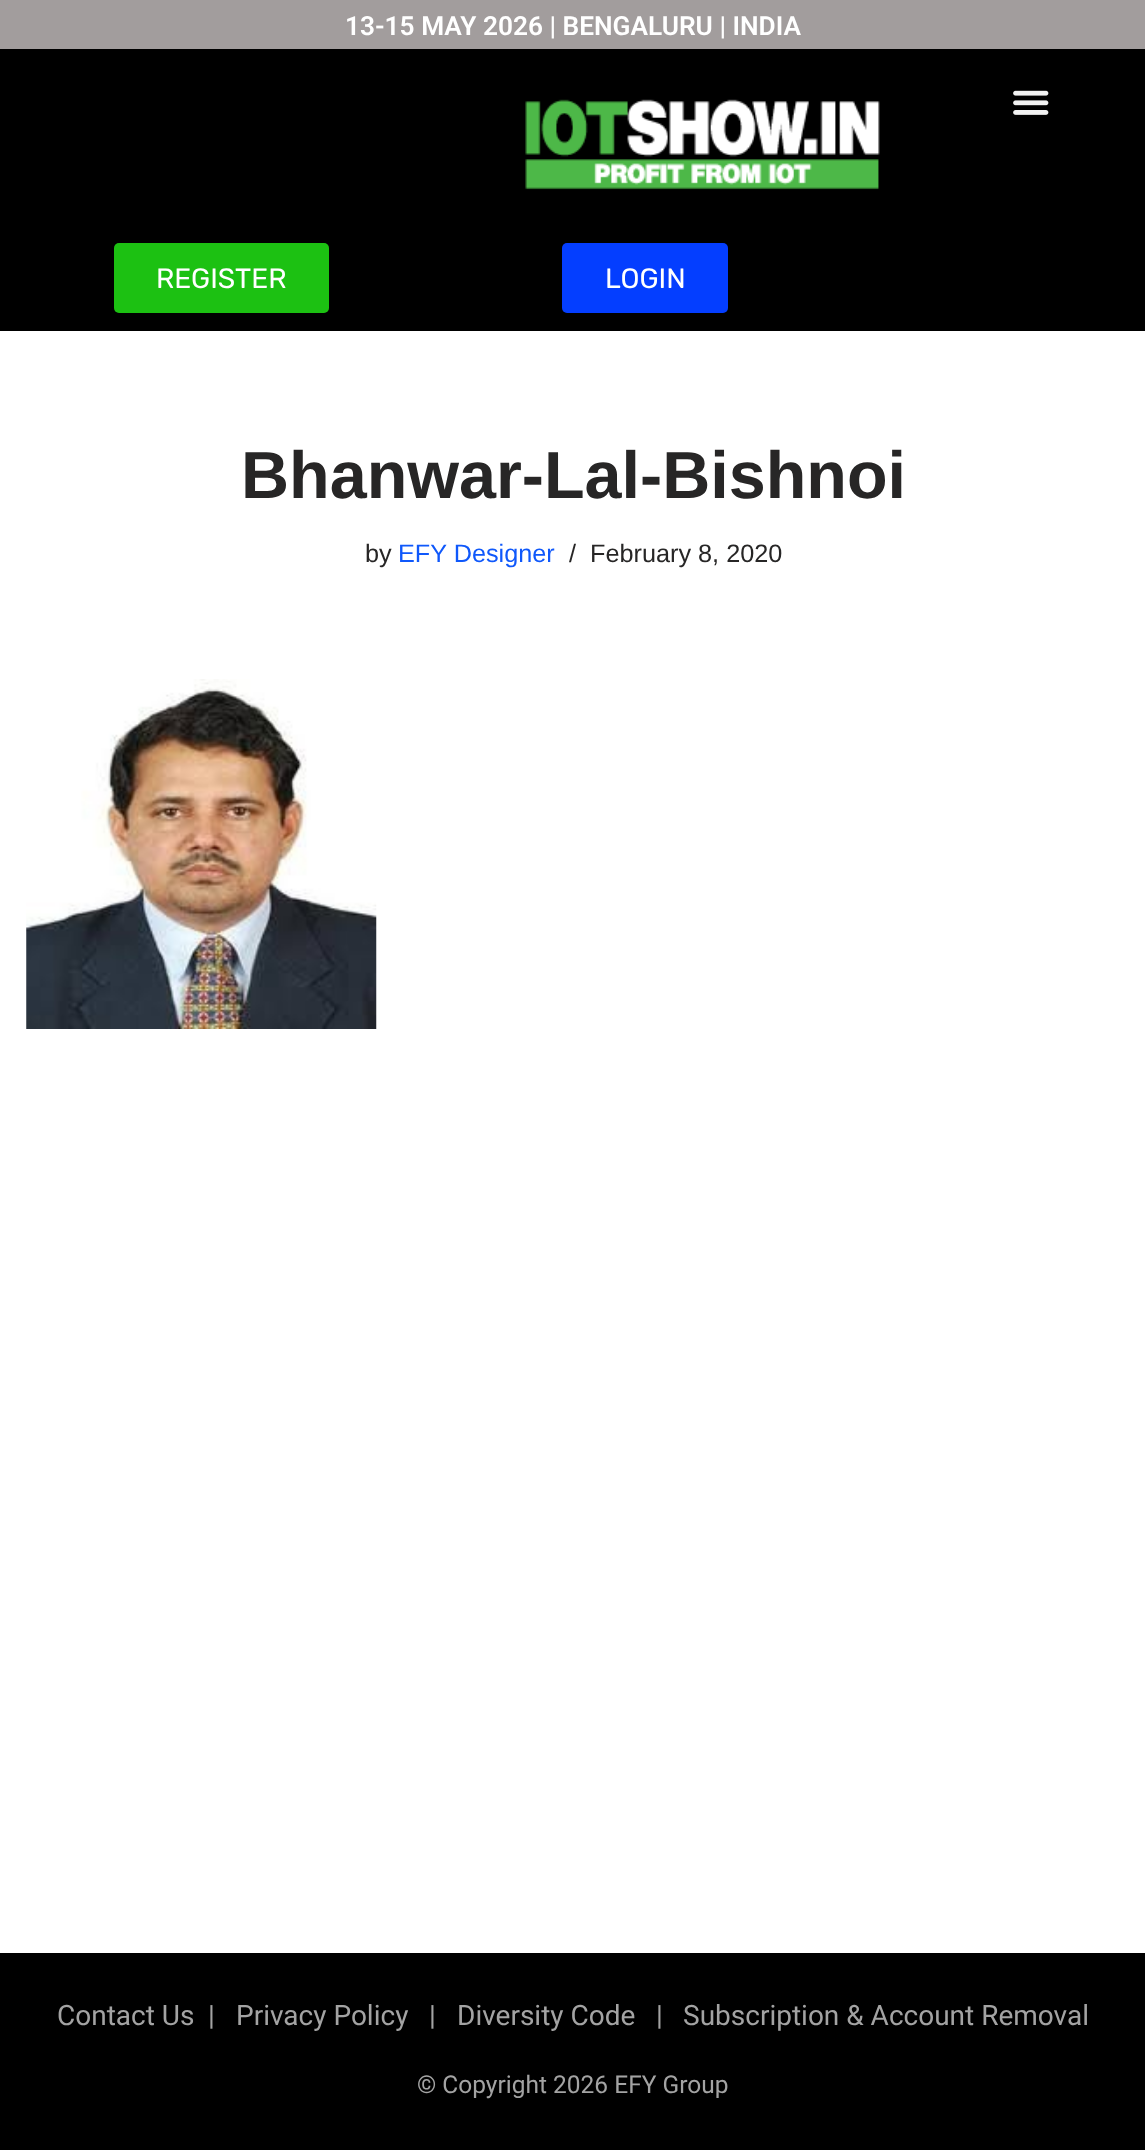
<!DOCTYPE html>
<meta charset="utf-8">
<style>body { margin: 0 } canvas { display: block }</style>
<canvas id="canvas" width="1145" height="2150"></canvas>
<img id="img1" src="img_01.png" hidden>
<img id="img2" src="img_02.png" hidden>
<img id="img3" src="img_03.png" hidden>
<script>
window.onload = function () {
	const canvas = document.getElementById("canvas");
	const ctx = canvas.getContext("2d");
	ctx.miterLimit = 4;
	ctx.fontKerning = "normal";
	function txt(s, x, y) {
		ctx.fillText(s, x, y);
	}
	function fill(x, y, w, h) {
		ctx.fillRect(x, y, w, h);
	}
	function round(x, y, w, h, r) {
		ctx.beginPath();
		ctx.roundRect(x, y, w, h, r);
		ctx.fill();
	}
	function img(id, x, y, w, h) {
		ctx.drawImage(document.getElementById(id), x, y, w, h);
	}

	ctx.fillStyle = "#FFFFFF";
	fill(0, 0, 1145, 2150);
	ctx.fillStyle = "#A29D9D";
	fill(0, 0, 1145, 49);
	ctx.fillStyle = "#000000";
	fill(0, 49, 1145, 282);
	img("img1", 525, 99, 355, 91);
	img("img2", 1013, 90, 36, 25);
	ctx.fillStyle = "#1CC112";
	round(114, 243, 215, 70, 5);
	ctx.fillStyle = "#043EFF";
	round(562, 243, 166, 70, 5);
	img("img3", 26, 679, 351, 350);
	ctx.fillStyle = "#000000";
	fill(0, 1953, 1145, 197);
	ctx.font = "600 26.25px Roboto";
	ctx.fillStyle = "#FFFFFF";
	txt("13-15 MAY 2026 | BENGALURU | INDIA", 345, 35);
	ctx.font = "28px Rubik";
	txt("REGISTER", 156, 288);
	txt("LOGIN", 605, 288);
	ctx.font = "bold 66.5px Liberation Sans";
	ctx.fillStyle = "#272626";
	txt("Bhanwar-Lal-Bishnoi", 241, 498);
	ctx.font = "25.25px Liberation Sans";
	txt("by", 365, 562);
	ctx.fillStyle = "#0F58FB";
	txt("EFY Designer", 398, 562);
	ctx.fillStyle = "#272626";
	txt("/", 569, 562);
	txt("February 8, 2020", 590, 562);
	ctx.font = "28px Roboto";
	ctx.fillStyle = "#A3A3A3";
	txt("Contact Us", 57, 2025);
	txt("|", 208, 2025);
	txt("Privacy Policy", 236, 2025);
	txt("|", 429, 2025);
	txt("Diversity Code", 457, 2025);
	txt("|", 656, 2025);
	txt("Subscription & Account Removal", 683, 2025);
	ctx.font = "24.5px Roboto";
	txt("© Copyright 2026 EFY Group", 417, 2093);
};
</script>
